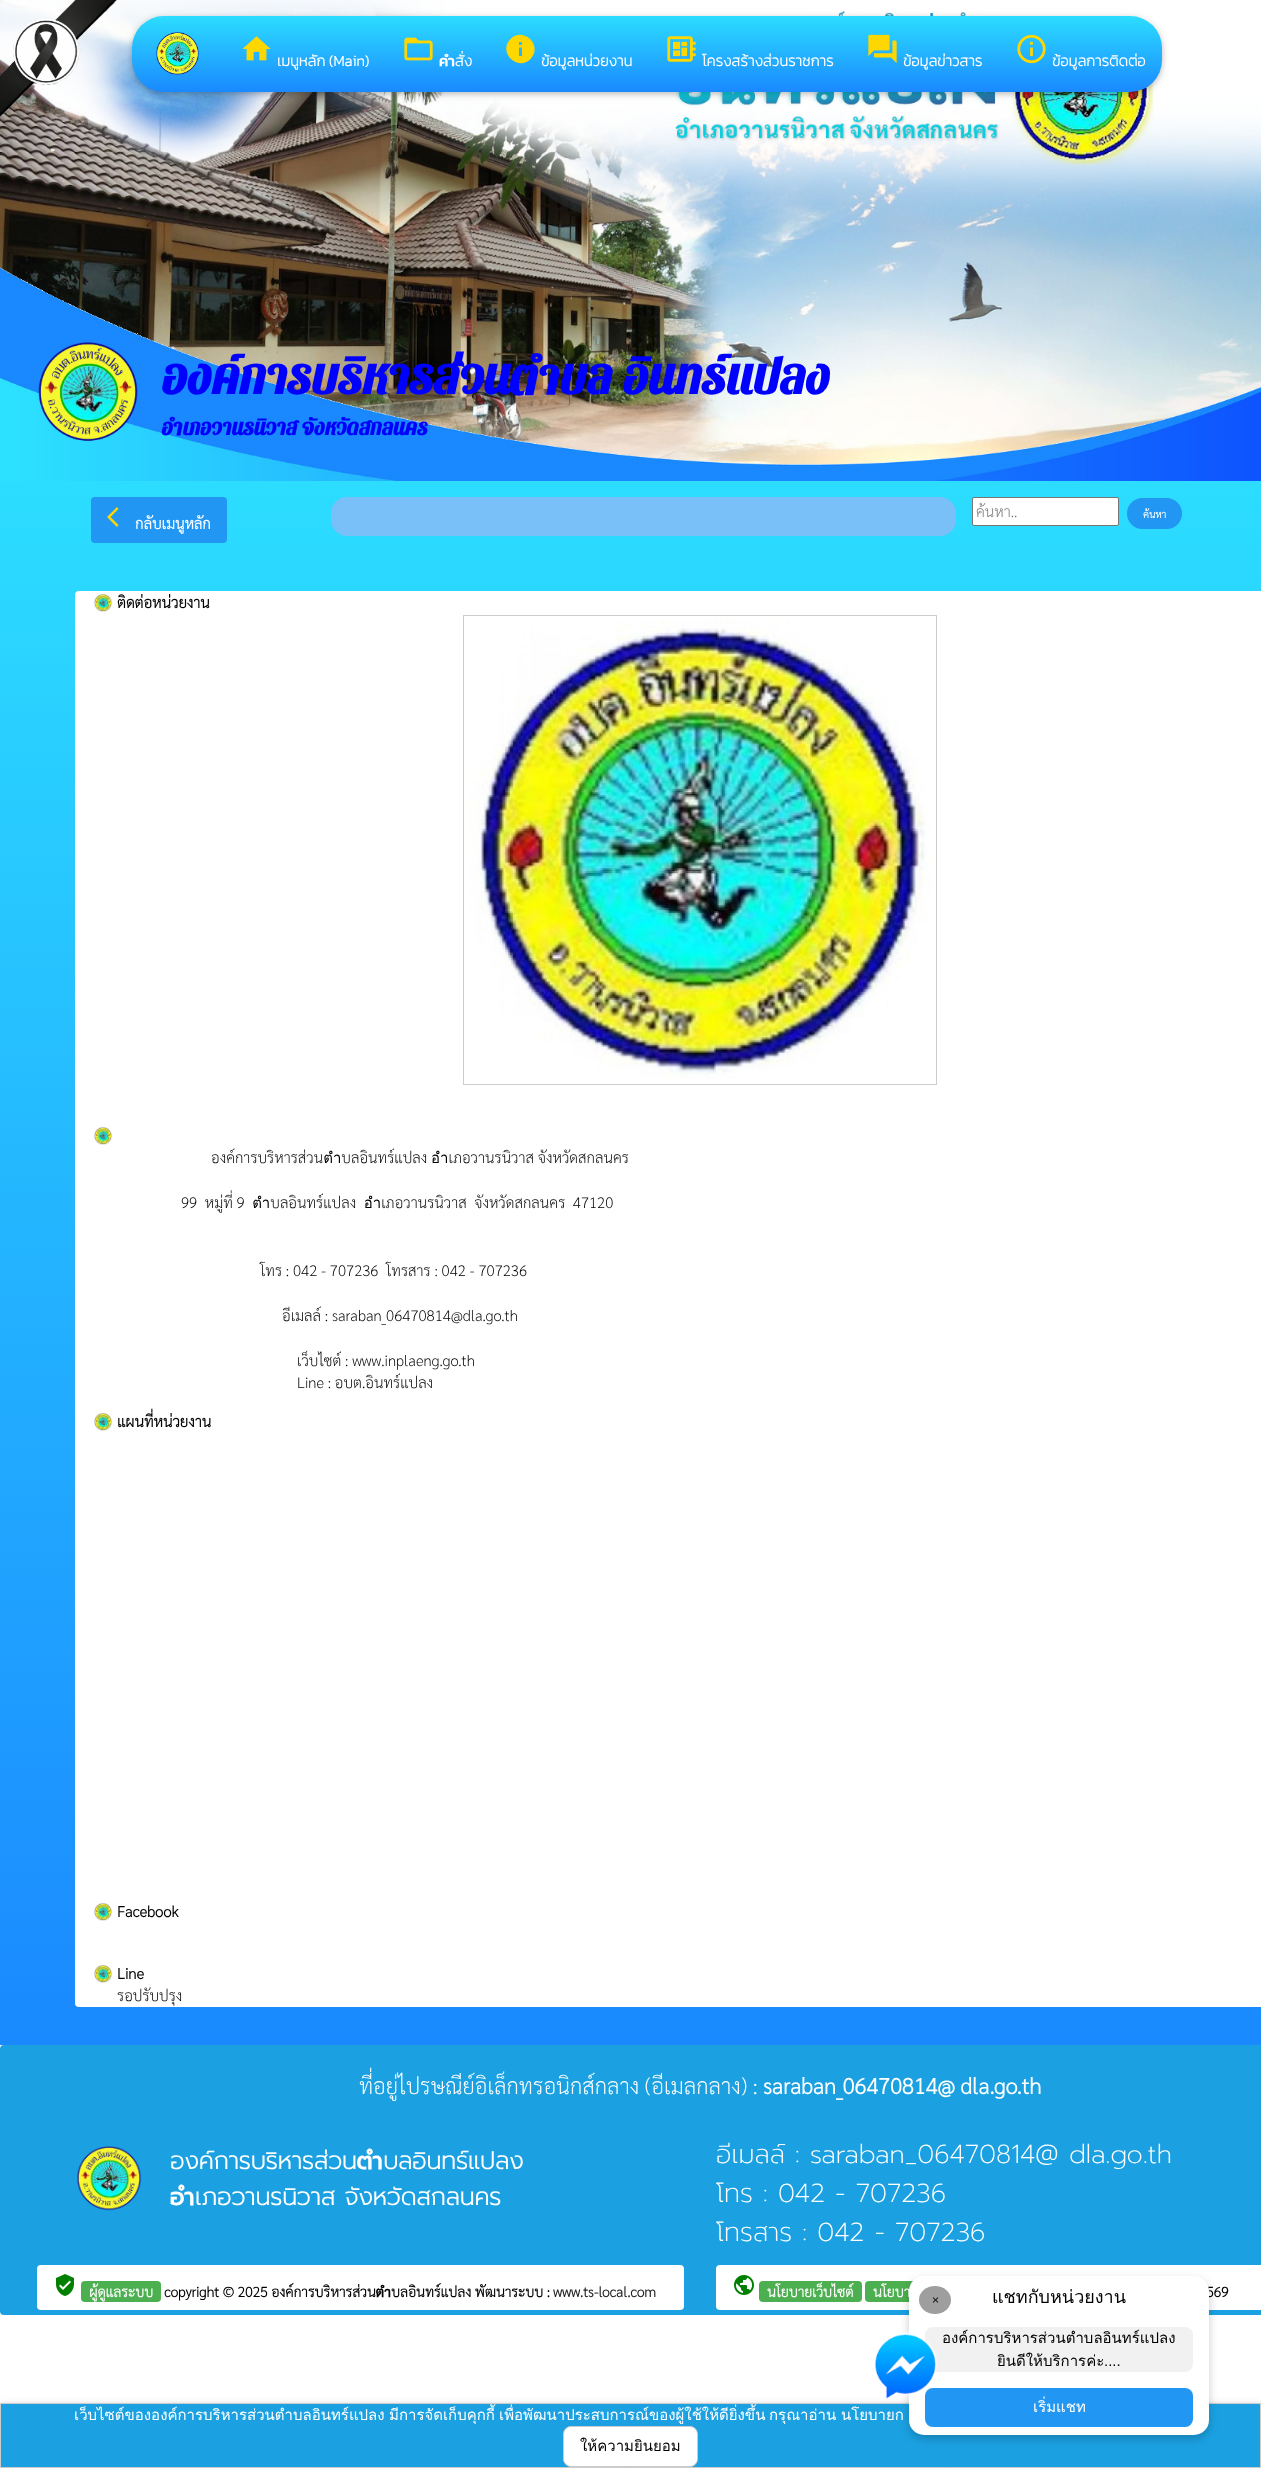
<!DOCTYPE html>
<meta charset="utf-8">
<style>body { margin: 0 } canvas { display: block }</style>
<canvas id="canvas" width="1261" height="2468"></canvas>
<img id="img1" src="img_08.png" hidden>
<img id="img2" src="img_01.png" hidden>
<img id="img3" src="img_02.png" hidden>
<img id="img4" src="img_03.png" hidden>
<img id="img5" src="img_04.png" hidden>
<img id="img6" src="img_05.png" hidden>
<img id="img7" src="img_06.png" hidden>
<img id="img8" src="img_07.png" hidden>
<img id="img9" src="img_09.png" hidden>
<img id="img10" src="img_10.png" hidden>
<img id="img11" src="img_11.png" hidden>
<img id="img12" src="img_12.png" hidden>
<img id="img13" src="img_13.png" hidden>
<img id="img14" src="img_14.png" hidden>
<img id="img15" src="img_15.png" hidden>
<img id="img16" src="img_16.png" hidden>
<script>
window.onload = function () {
	const canvas = document.getElementById("canvas");
	const ctx = canvas.getContext("2d");
	ctx.miterLimit = 4;
	ctx.fontKerning = "normal";
	function txt(s, x, y) {
		ctx.fillText(s, x, y);
	}
	function fill(x, y, w, h) {
		ctx.fillRect(x, y, w, h);
	}
	function round(x, y, w, h, r) {
		ctx.beginPath();
		ctx.roundRect(x, y, w, h, r);
		ctx.fill();
	}
	function img(id, x, y, w, h) {
		ctx.drawImage(document.getElementById(id), x, y, w, h);
	}
	let gradient;

	ctx.fillStyle = "#FFFFFF";
	fill(0, 0, 1261, 2468);
	img("img1", 0, 0, 1261, 465);
	ctx.fillStyle = "rgba(0, 0, 0, 0.12)";
	ctx.filter = "blur(5px)";
	ctx.beginPath();
	ctx.roundRect(132, 18, 1030, 76, 32);
	ctx.fill();
	ctx.filter = "none";
	img("img2", 0, 0, 117, 117);
	ctx.fillStyle = "rgba(0, 0, 0, 0.16)";
	ctx.filter = "blur(2.5px)";
	ctx.beginPath();
	ctx.roundRect(132, 18, 1030, 76, 32);
	ctx.fill();
	ctx.filter = "none";
	gradient = ctx.createLinearGradient(647, 16, 647, 92);
	gradient.addColorStop(0, "#2CDDFF");
	gradient.addColorStop(1, "#1A89FF");
	ctx.fillStyle = gradient;
	round(132, 16, 1030, 76, 32);
	img("img3", 156, 32, 43, 43);
	img("img4", 242, 36, 29, 25);
	img("img5", 404, 37, 29, 24);
	ctx.fillStyle = "#FFD700";
	ctx.beginPath();
	ctx.moveTo(522, 45);
	ctx.lineTo(522, 42);
	ctx.lineTo(519, 42);
	ctx.lineTo(519, 45);
	ctx.closePath();
	ctx.moveTo(522, 56);
	ctx.lineTo(522, 47.5);
	ctx.lineTo(519, 47.5);
	ctx.lineTo(519, 56);
	ctx.closePath();
	ctx.moveTo(510.5, 39);
	ctx.bezierCurveTo(523.5, 26, 543.5, 46, 530.5, 59);
	ctx.bezierCurveTo(517.5, 72, 497.5, 52, 510.5, 39);
	ctx.closePath();
	ctx.fill();
	img("img6", 667, 36, 29, 26);
	img("img7", 868, 34, 29, 29);
	img("img8", 1017, 34, 29, 30);
	img("img9", 0, 267, 1261, 214);
	img("img10", 38, 342, 100, 99);
	gradient = ctx.createLinearGradient(700, 481, 700, 2045);
	gradient.addColorStop(0, "#2CDDFF");
	gradient.addColorStop(1, "#1A89FF");
	ctx.fillStyle = gradient;
	fill(0, 481, 1261, 1564);
	ctx.fillStyle = "#79BFF8";
	round(331, 497, 625, 39, 16);
	ctx.fillStyle = "#FFFFFF";
	ctx.beginPath();
	ctx.roundRect(972.5, 497.5, 146, 28, 1.5);
	ctx.fill();
	ctx.strokeStyle = "#767676";
	ctx.stroke();
	ctx.fillStyle = "#2196F3";
	round(1127, 498, 55, 31, 15.5);
	round(91, 497, 136, 46, 4);
	ctx.fillStyle = "#FFD700";
	ctx.beginPath();
	ctx.moveTo(118.5, 509);
	ctx.lineTo(110.5, 517);
	ctx.lineTo(118.5, 525);
	ctx.lineTo(117, 527);
	ctx.lineTo(107, 517);
	ctx.lineTo(117, 507);
	ctx.closePath();
	ctx.fill();
	ctx.fillStyle = "#FFFFFF";
	round(75, 591, 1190, 1416, 4);
	img("img11", 94, 594, 19, 18);
	ctx.strokeStyle = "#CCCCCC";
	ctx.strokeRect(463.5, 615.5, 473, 469);
	img("img12", 468, 620, 464, 458);
	img("img11", 94, 1127, 19, 18);
	img("img11", 94, 1413, 19, 18);
	img("img11", 94, 1903, 19, 18);
	img("img11", 94, 1965, 19, 18);
	ctx.fillStyle = "#1BA1E2";
	round(0, 2045, 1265, 270, 4);
	img("img13", 77, 2146, 65, 65);
	ctx.fillStyle = "#FFFFFF";
	round(37, 2265, 647, 45, 4);
	img("img14", 56, 2274, 18, 22);
	ctx.fillStyle = "#4CAF50";
	round(81, 2281, 80, 21, 4);
	ctx.fillStyle = "#FFFFFF";
	round(716, 2265, 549, 45, 4);
	img("img15", 734, 2275, 20, 20);
	ctx.fillStyle = "#4CAF50";
	round(759, 2281, 103, 21, 4);
	round(865, 2281, 218, 21, 4);
	ctx.fillStyle = "rgba(0, 0, 0, 0.12)";
	ctx.filter = "blur(5px)";
	ctx.beginPath();
	ctx.rect(0, 2405, 1261, 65);
	ctx.fill();
	ctx.filter = "none";
	ctx.fillStyle = "rgba(0, 0, 0, 0.16)";
	ctx.filter = "blur(2.5px)";
	ctx.beginPath();
	ctx.rect(0, 2405, 1261, 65);
	ctx.fill();
	ctx.filter = "none";
	ctx.fillStyle = "#1BA1E2";
	ctx.beginPath();
	ctx.rect(0.5, 2403.5, 1260, 64);
	ctx.fill();
	ctx.stroke();
	ctx.fillStyle = "rgba(0, 0, 0, 0.2)";
	ctx.filter = "blur(5px)";
	ctx.beginPath();
	ctx.roundRect(909, 2280, 300, 159, 15);
	ctx.fill();
	ctx.filter = "none";
	ctx.fillStyle = "#FFFFFF";
	ctx.beginPath();
	ctx.roundRect(563.5, 2426.5, 134, 40, 7.5);
	ctx.fill();
	ctx.stroke();
	ctx.font = "bold 15px Kanit";
	txt("เมนูหลัก (Main)", 277, 66);
	txt("คำสั่ง", 439, 66);
	txt("ข้อมูลหน่วยงาน", 541, 66);
	txt("โครงสร้างส่วนราชการ", 702, 66);
	txt("ข้อมูลข่าวสาร", 903, 66);
	txt("ข้อมูลการติดต่อ", 1052, 66);
	ctx.font = "bold 50px Pattaya";
	ctx.fillStyle = "#0000FF";
	txt("องค์การบริหารส่วนตำบล อินทร์แปลง", 162, 394);
	ctx.font = "bold 22px Pattaya";
	txt("อำเภอวานรนิวาส จังหวัดสกลนคร", 162, 435);
	ctx.save();
	ctx.beginPath();
	ctx.rect(976, 501, 139, 19);
	ctx.clip();
	ctx.font = "200 15px Sarabun";
	ctx.fillStyle = "#757575";
	txt("ค้นหา..", 976, 517);
	ctx.restore();
	ctx.font = "bold 10px Sarabun";
	ctx.fillStyle = "#FFFFFF";
	txt("ค้นหา", 1143, 518);
	ctx.font = "bold 15px Sarabun";
	txt("กลับเมนูหลัก", 135, 529);
	ctx.fillStyle = "#000000";
	txt("ติดต่อหน่วยงาน", 117, 608);
	ctx.font = "200 15px Sarabun";
	txt("องค์การบริหารส่วนตำบลอินทร์แปลง อำเภอวานรนิวาส จังหวัดสกลนคร", 211, 1163);
	txt("99  หมู่ที่ 9  ตำบลอินทร์แปลง  อำเภอวานรนิวาส  จังหวัดสกลนคร  47120", 181, 1208);
	txt("โทร : 042 - 707236  โทรสาร : 042 - 707236", 260, 1276);
	txt("อีเมลล์ : saraban_06470814@dla.go.th", 282, 1321);
	txt("เว็บไซต์ : www.inplaeng.go.th", 297, 1366);
	txt("Line : อบต.อินทร์แปลง", 297, 1388);
	ctx.font = "bold 15px Sarabun";
	txt("แผนที่หน่วยงาน", 117, 1427);
	txt("Facebook", 117, 1917);
	txt("Line", 117, 1979);
	ctx.font = "200 15px Sarabun";
	txt("รอปรับปรุง", 117, 2001);
	ctx.font = "200 22px Sarabun";
	ctx.fillStyle = "#FFFFFF";
	txt("ที่อยู่ไปรษณีย์อิเล็กทรอนิกส์กลาง (อีเมลกลาง) :", 359, 2094);
	ctx.font = "bold 22px Sarabun";
	txt("saraban_06470814@ dla.go.th", 763, 2094);
	ctx.font = "bold 24px Prompt";
	txt("องค์การบริหารส่วนตำบลอินทร์แปลง", 170, 2169);
	txt("อำเภอวานรนิวาส จังหวัดสกลนคร", 170, 2205);
	ctx.font = "200 26px Prompt";
	txt("อีเมลล์ : saraban_06470814@ dla.go.th", 716, 2163);
	txt("โทร : 042 - 707236", 716, 2202);
	txt("โทรสาร : 042 - 707236", 716, 2241);
	ctx.font = "bold 14px Sarabun";
	txt("ผู้ดูแลระบบ", 89, 2297);
	ctx.fillStyle = "#000000";
	txt("copyright © 2025 องค์การบริหารส่วนตำบลอินทร์แปลง พัฒนาระบบ :", 164, 2297);
	ctx.fillStyle = "#222222";
	txt("www.ts-local.com", 553, 2297);
	ctx.fillStyle = "#FFFFFF";
	txt("นโยบายเว็บไซต์", 767, 2297);
	txt("นโยบา", 873, 2297);
	ctx.fillStyle = "#000000";
	txt("569", 1206, 2297);
	ctx.fillStyle = "#FFFFFF";
	round(909, 2276, 300, 159, 15);
	ctx.fillStyle = "#9E9E9E";
	ctx.beginPath();
	ctx.ellipse(935, 2300, 16, 14, 0, 0, Math.PI * 2);
	ctx.fill();
	ctx.font = "12px Liberation Sans";
	ctx.fillStyle = "#000000";
	txt("×", 932, 2304);
	ctx.font = "18px Loma";
	txt("แชทกับหน่วยงาน", 992, 2303);
	ctx.fillStyle = "#F1F1F1";
	round(925, 2327, 268, 45, 8);
	ctx.font = "15px Loma";
	ctx.fillStyle = "#000000";
	txt("องค์การบริหารส่วนตำบลอินทร์แปลง", 942, 2343);
	txt("ยินดีให้บริการค่ะ", 997, 2366);
	ctx.font = "15px Liberation Sans";
	txt("....", 1104, 2366);
	ctx.fillStyle = "#2196F3";
	round(925, 2388, 268, 39, 8);
	img("img16", 875, 2332, 62, 67);
	ctx.font = "15px Loma";
	ctx.fillStyle = "#FFFFFF";
	txt("เริ่มแชท", 1033, 2412);
	txt("เว็บไซต์ขององค์การบริหารส่วนตำบลอินทร์แปลง", 74, 2420);
	txt("มีการจัดเก็บคุกกี้", 389, 2420);
	txt("เพื่อพัฒนาประสบการณ์ของผู้ใช้ให้ดียิ่งขึ้น", 499, 2420);
	txt("กรุณาอ่าน", 769, 2420);
	txt("นโยบายก", 841, 2420);
	ctx.fillStyle = "#000000";
	txt("ให้ความยินยอม", 580, 2451);
};
</script>
